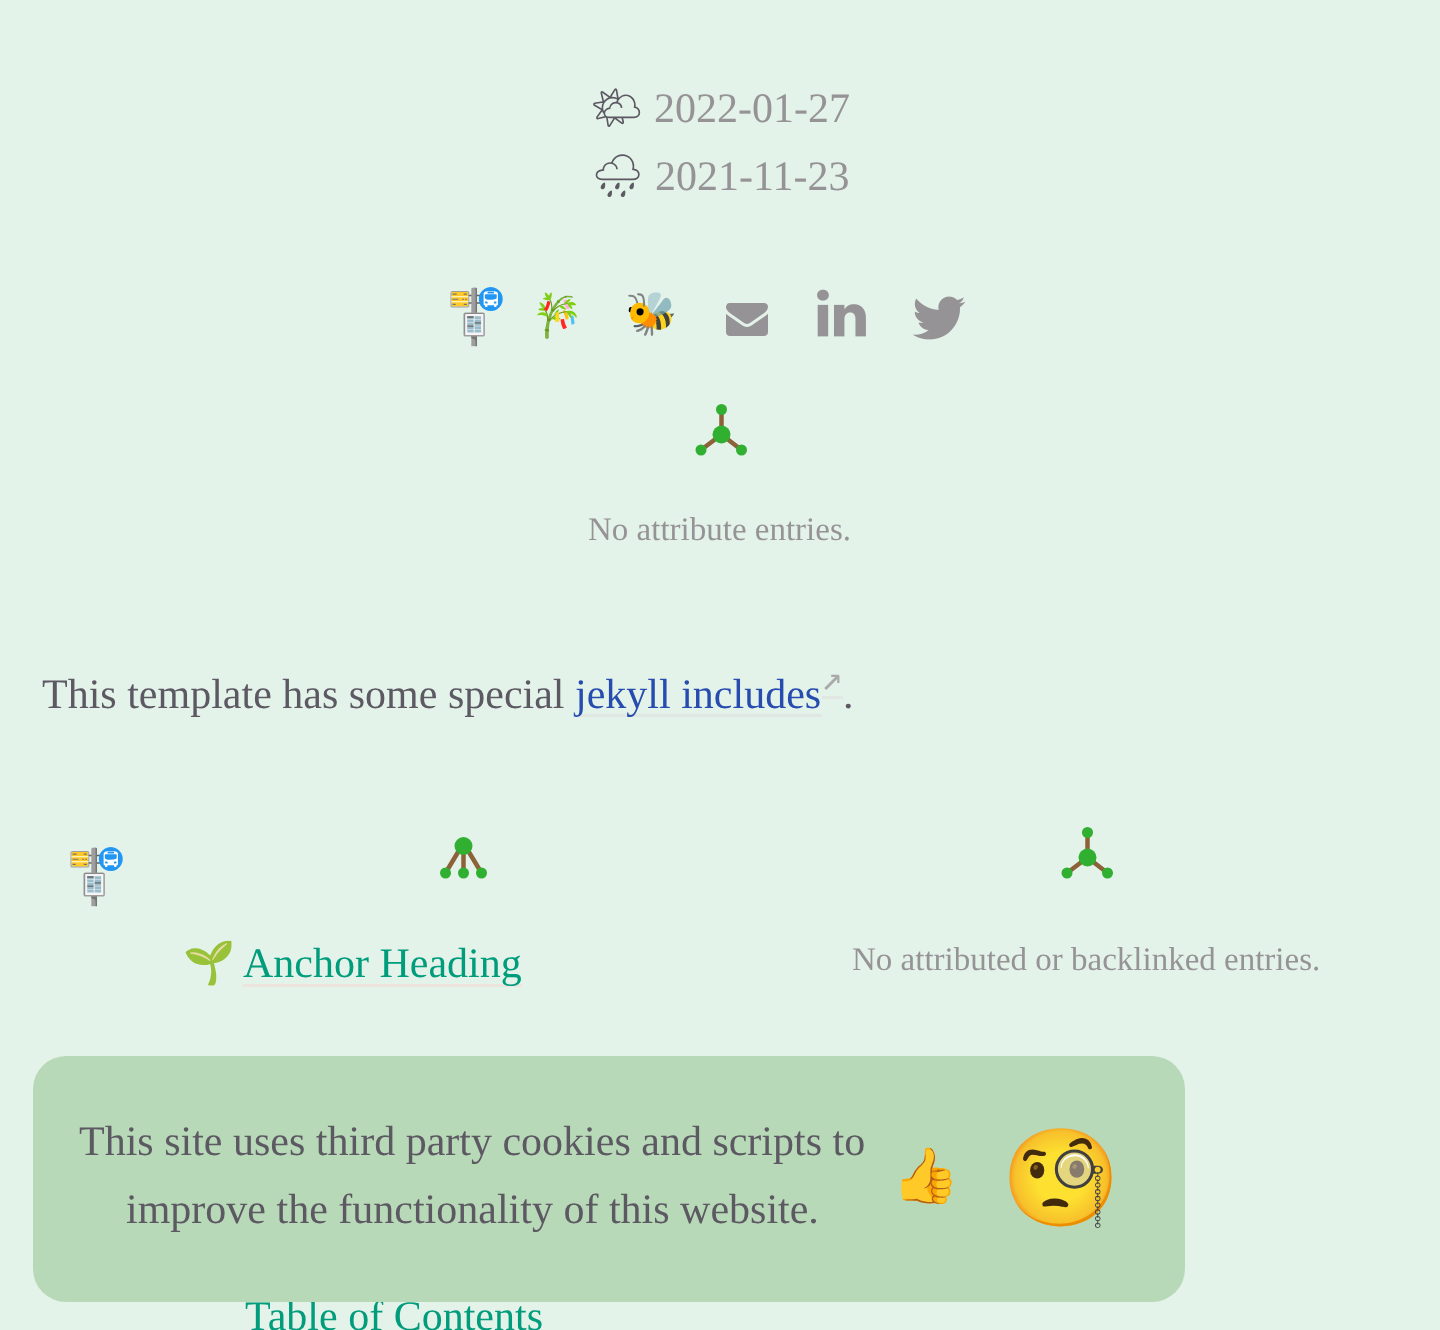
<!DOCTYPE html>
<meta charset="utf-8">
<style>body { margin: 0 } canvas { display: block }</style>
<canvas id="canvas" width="1440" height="1330"></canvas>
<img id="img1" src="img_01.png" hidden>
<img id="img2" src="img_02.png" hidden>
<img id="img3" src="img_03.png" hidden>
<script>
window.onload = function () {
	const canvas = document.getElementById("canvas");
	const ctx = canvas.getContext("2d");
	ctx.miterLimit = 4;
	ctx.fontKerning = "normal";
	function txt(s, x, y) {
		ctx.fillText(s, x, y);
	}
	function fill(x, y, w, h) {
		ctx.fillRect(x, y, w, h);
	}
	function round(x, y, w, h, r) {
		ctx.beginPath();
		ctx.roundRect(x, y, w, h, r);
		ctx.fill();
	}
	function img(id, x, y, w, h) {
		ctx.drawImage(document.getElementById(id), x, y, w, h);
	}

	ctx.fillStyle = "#E4F3EA";
	fill(0, 0, 1440, 1330);
	img("img1", 726, 303, 42, 33);
	img("img2", 817, 289, 49, 48);
	img("img3", 913, 296, 53, 44);
	ctx.beginPath();
	ctx.moveTo(721.5, 434.5);
	ctx.lineTo(701, 450);
	ctx.moveTo(721.5, 434.5);
	ctx.lineTo(721.5, 409.5);
	ctx.moveTo(721.5, 434.5);
	ctx.lineTo(741.5, 450);
	ctx.strokeStyle = "#8C6239";
	ctx.lineWidth = 4.5;
	ctx.lineCap = "round";
	ctx.stroke();
	ctx.fillStyle = "#31AF31";
	ctx.beginPath();
	ctx.arc(721.5, 409.5, 5.5, 0, Math.PI * 2);
	ctx.fill();
	ctx.beginPath();
	ctx.arc(721.5, 434.5, 9, 0, Math.PI * 2);
	ctx.fill();
	ctx.beginPath();
	ctx.arc(701, 450, 5.5, 0, Math.PI * 2);
	ctx.fill();
	ctx.beginPath();
	ctx.arc(741.5, 450, 5.5, 0, Math.PI * 2);
	ctx.fill();
	ctx.fillStyle = "#E1E8E3";
	fill(576, 714, 246, 3);
	fill(822, 696, 21, 3);
	ctx.beginPath();
	ctx.moveTo(459, 850.5);
	ctx.lineTo(445.5, 873);
	ctx.moveTo(463.5, 850.5);
	ctx.lineTo(463.5, 873);
	ctx.moveTo(468, 850.5);
	ctx.lineTo(481.5, 873);
	ctx.stroke();
	ctx.fillStyle = "#31AF31";
	ctx.beginPath();
	ctx.arc(463.5, 846, 9, 0, Math.PI * 2);
	ctx.fill();
	ctx.beginPath();
	ctx.arc(445.5, 873, 5.5, 0, Math.PI * 2);
	ctx.fill();
	ctx.beginPath();
	ctx.arc(463.5, 873, 5.5, 0, Math.PI * 2);
	ctx.fill();
	ctx.beginPath();
	ctx.arc(481.5, 873, 5.5, 0, Math.PI * 2);
	ctx.fill();
	ctx.fillStyle = "#EDE5DD";
	fill(243, 984, 279, 3);
	ctx.beginPath();
	ctx.moveTo(1087.5, 857.5);
	ctx.lineTo(1067, 873);
	ctx.moveTo(1087.5, 857.5);
	ctx.lineTo(1087.5, 832.5);
	ctx.moveTo(1087.5, 857.5);
	ctx.lineTo(1107.5, 873);
	ctx.stroke();
	ctx.fillStyle = "#31AF31";
	ctx.beginPath();
	ctx.arc(1087.5, 832.5, 5.5, 0, Math.PI * 2);
	ctx.fill();
	ctx.beginPath();
	ctx.arc(1087.5, 857.5, 9, 0, Math.PI * 2);
	ctx.fill();
	ctx.beginPath();
	ctx.arc(1067, 873, 5.5, 0, Math.PI * 2);
	ctx.fill();
	ctx.beginPath();
	ctx.arc(1107.5, 873, 5.5, 0, Math.PI * 2);
	ctx.fill();
	ctx.font = "42px Noto Emoji";
	ctx.fillStyle = "#5C5962";
	txt("🌤", 590, 122);
	ctx.font = "42px Liberation Serif";
	ctx.fillStyle = "#959396";
	txt("2022-01-27", 654, 122);
	ctx.font = "42px Noto Emoji";
	ctx.fillStyle = "#5C5962";
	txt("🌧", 591, 190);
	ctx.font = "42px Liberation Serif";
	ctx.fillStyle = "#959396";
	txt("2021-11-23", 655, 190);
	ctx.font = "54px Noto Color Emoji";
	ctx.fillStyle = "#5C5962";
	txt("🚏", 443, 335);
	ctx.font = "42px Noto Color Emoji";
	txt("🎋", 531, 330);
	txt("🐝", 625, 328);
	ctx.font = "33px Liberation Serif";
	ctx.fillStyle = "#959396";
	txt("No attribute entries.", 588, 540);
	ctx.font = "42px Liberation Serif";
	ctx.fillStyle = "#5C5962";
	txt("This template has some special", 42, 708);
	ctx.fillStyle = "#264CAF";
	txt("jekyll includes", 575, 708);
	ctx.font = "36px DejaVu Sans Mono";
	ctx.fillStyle = "#AAAAAA";
	txt("↗", 821, 690);
	ctx.font = "42px Liberation Serif";
	ctx.fillStyle = "#5C5962";
	txt(".", 843, 708);
	ctx.font = "54px Noto Color Emoji";
	txt("🚏", 63, 895);
	ctx.font = "42px Noto Color Emoji";
	txt("🌱", 183, 977);
	ctx.font = "42px Liberation Serif";
	ctx.fillStyle = "#009C7B";
	txt("Anchor Heading", 243, 977);
	txt("Table of Contents", 245, 1330);
	ctx.font = "33px Liberation Serif";
	ctx.fillStyle = "#959396";
	txt("No attributed or backlinked entries.", 852, 970);
	ctx.fillStyle = "#B8D9B8";
	round(33, 1056, 1152, 246, 33);
	ctx.font = "42px Liberation Serif";
	ctx.fillStyle = "#5C5962";
	txt("This site uses third party cookies and scripts to", 79, 1155);
	txt("improve the functionality of this website.", 126, 1223);
	ctx.font = "54px Noto Color Emoji";
	txt("👍", 892, 1194);
	ctx.font = "96px Noto Color Emoji";
	ctx.fillStyle = "#0000EE";
	txt("🧐", 1001, 1211);
};
</script>
